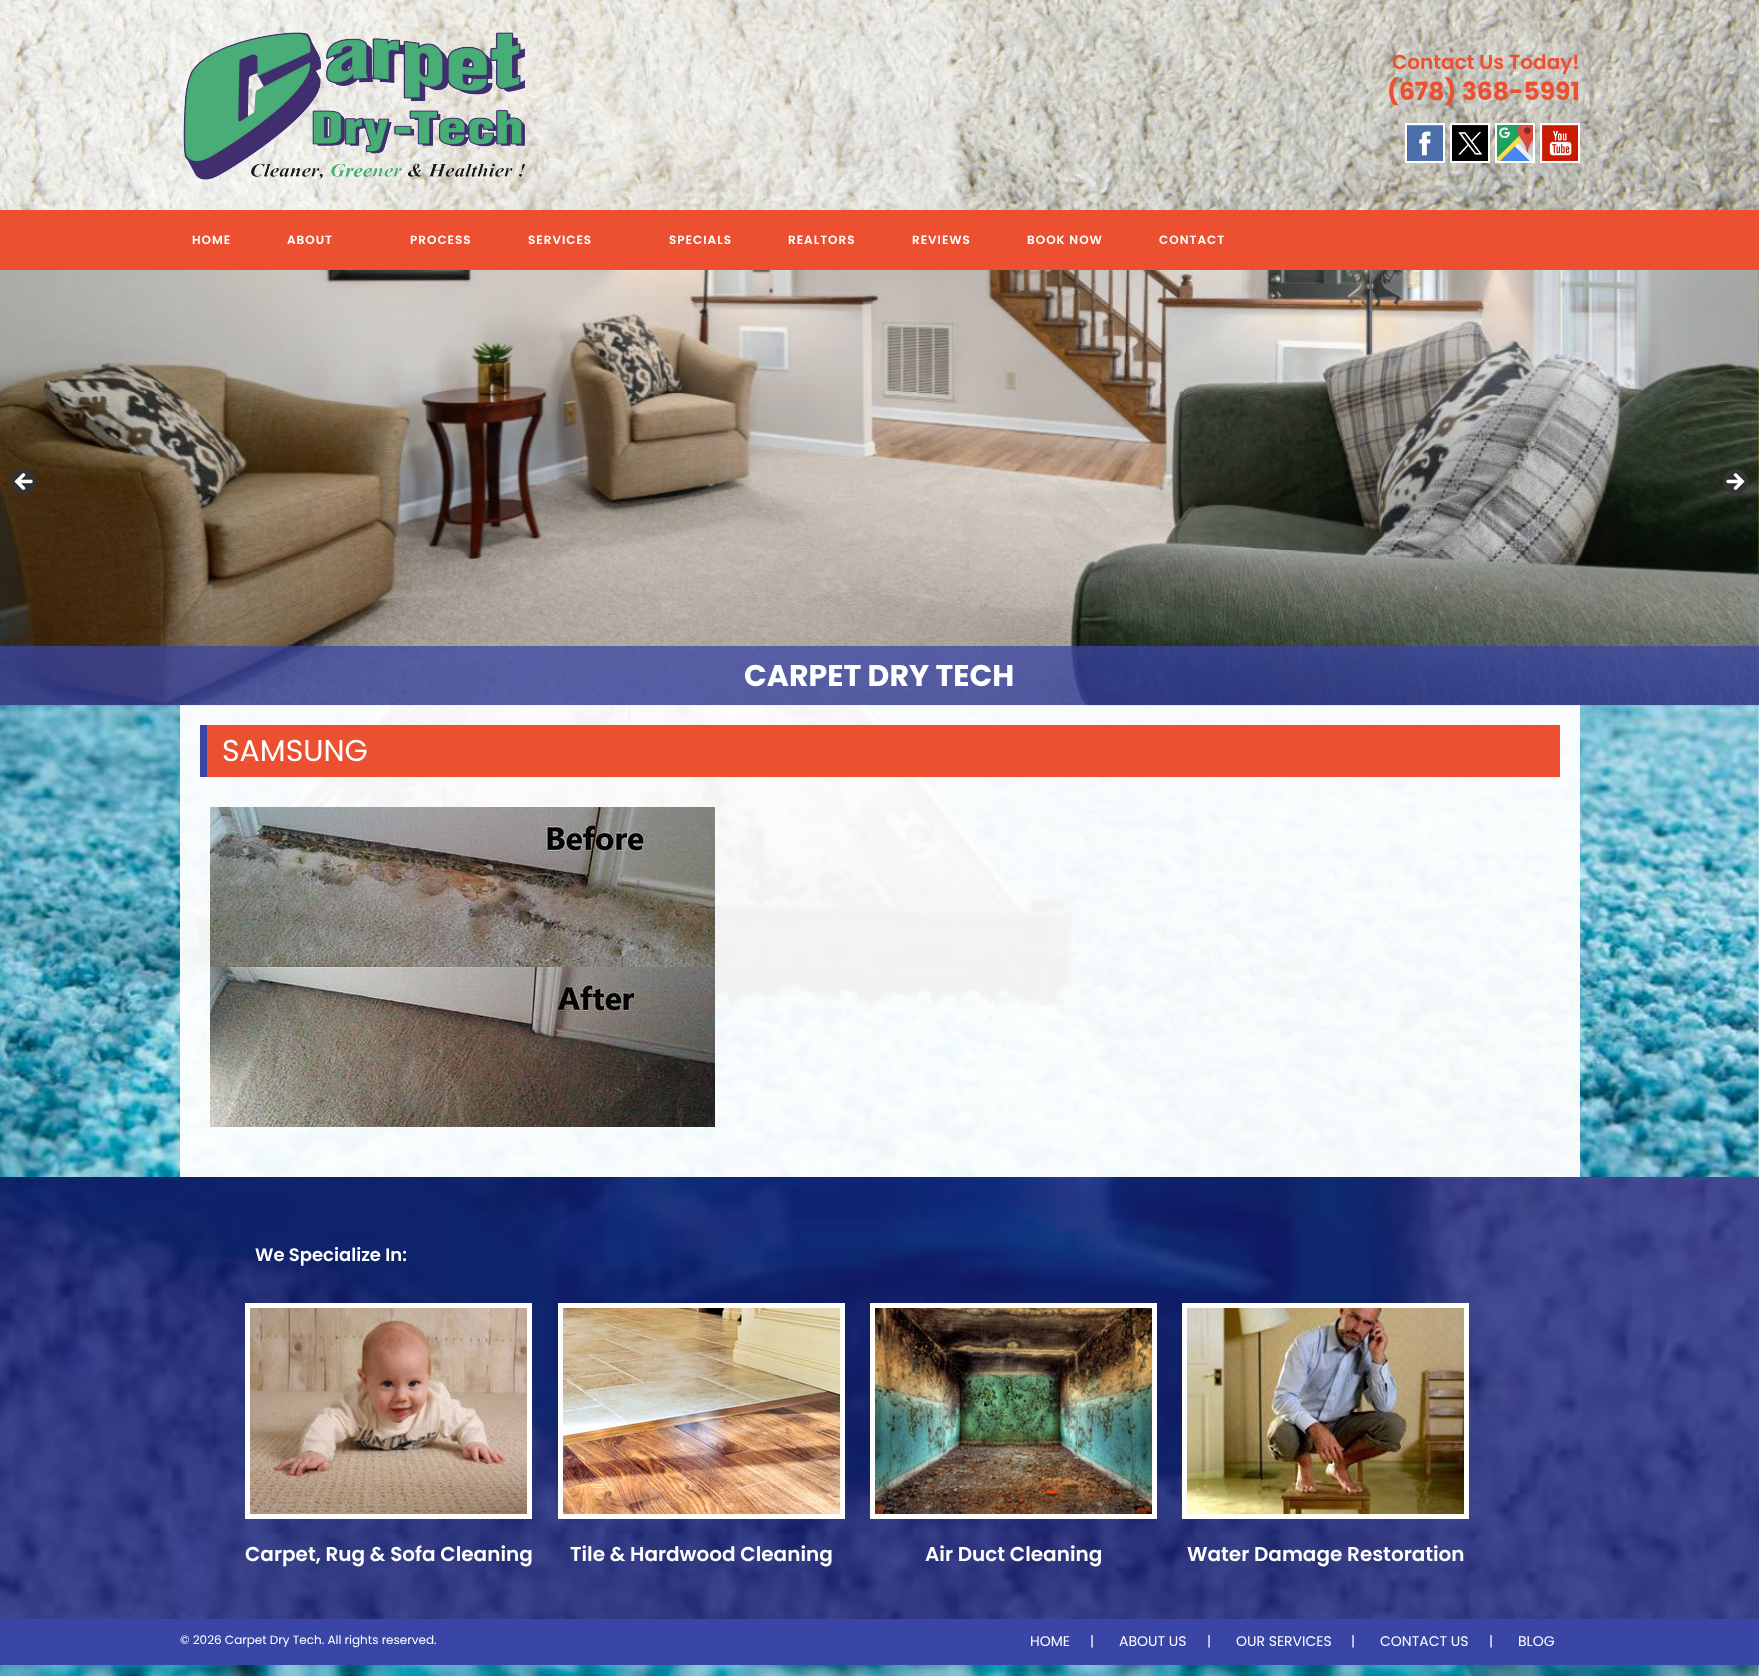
<!DOCTYPE html>
<meta charset="utf-8">
<style>body { margin: 0 } canvas { display: block }</style>
<canvas id="canvas" width="1759" height="1676"></canvas>
<img id="img1" src="img_01.png" hidden>
<img id="img2" src="img_02.png" hidden>
<img id="img3" src="img_03.png" hidden>
<img id="img4" src="img_04.png" hidden>
<img id="img5" src="img_05.png" hidden>
<img id="img6" src="img_06.png" hidden>
<img id="img7" src="img_07.png" hidden>
<img id="img8" src="img_10.png" hidden>
<img id="img9" src="img_08.png" hidden>
<img id="img10" src="img_09.png" hidden>
<img id="img11" src="img_11.png" hidden>
<img id="img12" src="img_12.png" hidden>
<img id="img13" src="img_13.png" hidden>
<img id="img14" src="img_14.png" hidden>
<img id="img15" src="img_15.png" hidden>
<img id="img16" src="img_16.png" hidden>
<script>
window.onload = function () {
	const canvas = document.getElementById("canvas");
	const ctx = canvas.getContext("2d");
	ctx.miterLimit = 4;
	ctx.fontKerning = "normal";
	function txt(s, x, y) {
		ctx.fillText(s, x, y);
	}
	function fill(x, y, w, h) {
		ctx.fillRect(x, y, w, h);
	}
	function img(id, x, y, w, h) {
		ctx.drawImage(document.getElementById(id), x, y, w, h);
	}

	ctx.fillStyle = "#FFFFFF";
	fill(0, 0, 1759, 1676);
	img("img1", 0, 270, 1759, 1406);
	img("img2", 0, 0, 1759, 210);
	img("img3", 183, 32, 343, 148);
	ctx.strokeStyle = "#FFFFFF";
	ctx.lineWidth = 2;
	ctx.strokeRect(1406, 124, 38, 38);
	ctx.strokeRect(1451, 124, 38, 38);
	ctx.strokeRect(1496, 124, 38, 38);
	ctx.strokeRect(1541, 124, 38, 38);
	img("img4", 1407, 125, 36, 36);
	img("img5", 1452, 125, 36, 36);
	img("img6", 1497, 125, 36, 36);
	img("img7", 1542, 125, 36, 36);
	ctx.fillStyle = "#EC5031";
	fill(0, 210, 1759, 60);
	ctx.fillStyle = "rgba(255, 255, 255, 0.95)";
	fill(180, 705, 1400, 72);
	img("img8", 0, 270, 1759, 436);
	img("img9", 11, 469, 25, 25);
	img("img10", 1723, 469, 25, 25);
	ctx.fillStyle = "rgba(57, 70, 166, 0.75)";
	fill(0, 646, 1759, 59);
	ctx.fillStyle = "#EC5031";
	fill(207, 725, 1353, 52);
	ctx.fillStyle = "#3946A6";
	fill(200, 725, 7, 52);
	ctx.fillStyle = "rgba(255, 255, 255, 0.95)";
	fill(180, 777, 1400, 400);
	img("img11", 210, 807, 505, 320);
	img("img12", 0, 1177, 1759, 442);
	ctx.lineWidth = 5;
	ctx.strokeRect(247.5, 1305.5, 282, 211);
	img("img13", 250, 1308, 277, 206);
	ctx.strokeRect(560.5, 1305.5, 282, 211);
	img("img14", 563, 1308, 277, 206);
	ctx.strokeRect(872.5, 1305.5, 282, 211);
	img("img15", 875, 1308, 277, 206);
	ctx.strokeRect(1184.5, 1305.5, 282, 211);
	img("img16", 1187, 1308, 277, 206);
	ctx.fillStyle = "#3946A6";
	fill(0, 1619, 1759, 46);
	ctx.font = "600 20px Poppins";
	ctx.fillStyle = "#EC5031";
	txt("Contact Us Today!", 1392, 69);
	ctx.font = "bold 25px Poppins";
	txt("(678) 368-5991", 1387, 100);
	ctx.letterSpacing = "1px";
	ctx.font = "600 12px Poppins";
	ctx.fillStyle = "#FFFFFF";
	txt("HOME", 192, 244);
	txt("ABOUT", 287, 244);
	txt("PROCESS", 410, 244);
	txt("SERVICES", 528, 244);
	txt("SPECIALS", 669, 244);
	txt("REALTORS", 788, 244);
	txt("REVIEWS", 912, 244);
	txt("BOOK NOW", 1027, 244);
	txt("CONTACT", 1159, 244);
	ctx.letterSpacing = "0px";
	ctx.font = "bold 30px Poppins";
	txt("CARPET DRY TECH", 744, 686);
	ctx.font = "30px Poppins";
	txt("SAMSUNG", 222, 761);
	ctx.font = "600 18px Poppins";
	txt("We Specialize In:", 255, 1261);
	ctx.font = "600 20px Poppins";
	txt("Carpet, Rug & Sofa Cleaning", 245, 1561);
	txt("Tile & Hardwood Cleaning", 570, 1561);
	txt("Air Duct Cleaning", 925, 1561);
	txt("Water Damage Restoration", 1187, 1561);
	ctx.font = "12px Poppins";
	txt("© 2026 Carpet Dry Tech. All rights reserved.", 180, 1644);
	ctx.font = "14px Poppins";
	txt("HOME", 1030, 1646);
	txt("|", 1090, 1646);
	txt("ABOUT US", 1119, 1646);
	txt("|", 1207, 1646);
	txt("OUR SERVICES", 1236, 1646);
	txt("|", 1351, 1646);
	txt("CONTACT US", 1380, 1646);
	txt("|", 1489, 1646);
	txt("BLOG", 1518, 1646);
};
</script>
